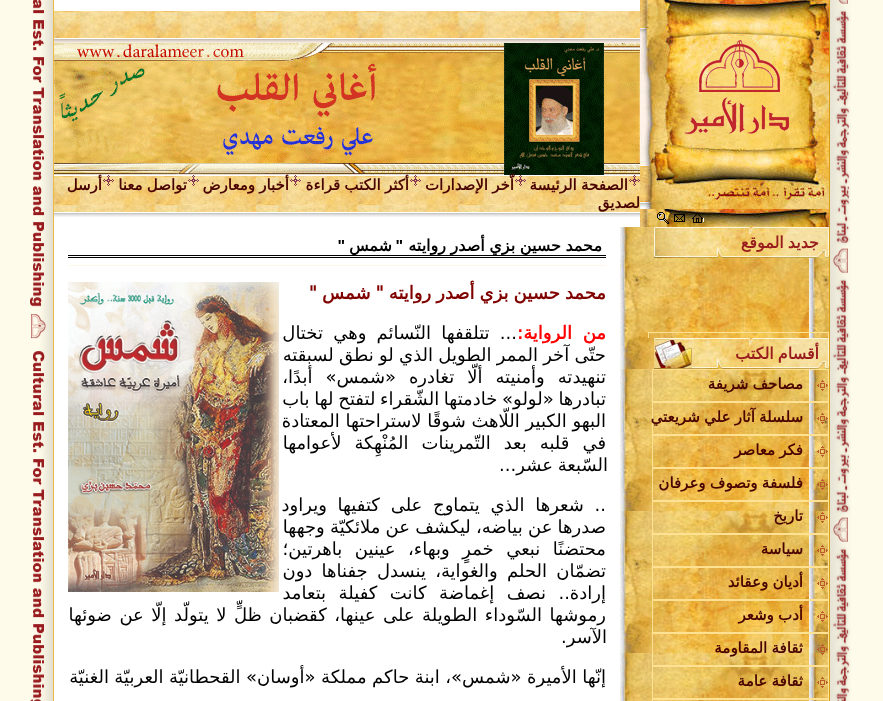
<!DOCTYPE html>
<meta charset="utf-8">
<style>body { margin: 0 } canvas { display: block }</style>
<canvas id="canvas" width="883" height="701"></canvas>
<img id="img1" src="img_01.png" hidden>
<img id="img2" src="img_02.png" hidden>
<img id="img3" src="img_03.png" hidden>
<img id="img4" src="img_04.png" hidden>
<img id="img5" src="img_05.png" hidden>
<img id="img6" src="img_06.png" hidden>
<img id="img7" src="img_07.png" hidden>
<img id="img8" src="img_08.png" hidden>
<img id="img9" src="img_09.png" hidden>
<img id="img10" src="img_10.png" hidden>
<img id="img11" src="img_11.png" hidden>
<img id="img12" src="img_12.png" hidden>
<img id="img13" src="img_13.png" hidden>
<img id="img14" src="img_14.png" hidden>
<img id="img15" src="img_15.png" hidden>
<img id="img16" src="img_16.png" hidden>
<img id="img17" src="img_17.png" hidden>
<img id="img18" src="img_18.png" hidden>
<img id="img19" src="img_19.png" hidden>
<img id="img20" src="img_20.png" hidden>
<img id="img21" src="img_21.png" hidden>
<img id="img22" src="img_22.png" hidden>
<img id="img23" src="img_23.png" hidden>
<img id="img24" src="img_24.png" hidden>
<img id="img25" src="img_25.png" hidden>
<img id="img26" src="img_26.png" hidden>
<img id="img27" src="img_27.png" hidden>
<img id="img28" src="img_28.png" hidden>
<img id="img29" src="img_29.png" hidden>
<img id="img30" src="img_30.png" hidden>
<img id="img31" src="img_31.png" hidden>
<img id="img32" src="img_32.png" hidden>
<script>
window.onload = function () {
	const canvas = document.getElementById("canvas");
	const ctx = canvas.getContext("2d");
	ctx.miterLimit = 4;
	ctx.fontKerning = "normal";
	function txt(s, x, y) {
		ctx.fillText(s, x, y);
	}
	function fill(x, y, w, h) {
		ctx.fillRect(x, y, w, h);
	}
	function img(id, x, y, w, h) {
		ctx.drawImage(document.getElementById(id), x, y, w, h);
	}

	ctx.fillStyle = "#FFFFFF";
	fill(0, 0, 883, 701);
	ctx.fillStyle = "#FEFBEA";
	fill(851, 0, 32, 701);
	img("img1", 830, 0, 21, 701);
	ctx.fillStyle = "#D99F15";
	fill(829, 0, 1, 701);
	img("img2", 640, 0, 189, 227);
	img("img3", 652, 13, 170, 186);
	img("img4", 692, 213, 12, 10);
	img("img5", 674, 214, 11, 8);
	img("img6", 657, 212, 12, 12);
	img("img7", 54, 11, 586, 27);
	img("img8", 54, 39, 586, 4);
	img("img9", 54, 43, 586, 132);
	img("img10", 54, 176, 586, 36);
	img("img11", 629, 175, 11, 11);
	img("img12", 515, 175, 11, 11);
	img("img13", 410, 175, 11, 11);
	img("img14", 290, 175, 11, 11);
	img("img15", 188, 175, 11, 11);
	img("img16", 103, 175, 11, 11);
	img("img17", 54, 213, 586, 4);
	img("img18", 620, 227, 209, 474);
	img("img19", 654, 227, 175, 31);
	img("img19", 654, 338, 175, 31);
	img("img20", 654, 340, 38, 28);
	img("img21", 817, 380, 11, 11);
	ctx.strokeStyle = "#FFE194";
	ctx.strokeRect(652.5, 369.5, 176, 32);
	img("img22", 817, 413, 11, 11);
	ctx.strokeRect(652.5, 402.5, 176, 32);
	img("img23", 817, 446, 11, 11);
	ctx.strokeRect(652.5, 435.5, 176, 32);
	img("img24", 817, 479, 11, 11);
	ctx.strokeRect(652.5, 468.5, 176, 32);
	img("img25", 817, 512, 11, 11);
	ctx.strokeRect(652.5, 501.5, 176, 32);
	img("img26", 817, 545, 11, 11);
	ctx.strokeRect(652.5, 534.5, 176, 32);
	img("img27", 817, 578, 11, 11);
	ctx.strokeRect(652.5, 567.5, 176, 32);
	img("img28", 817, 611, 11, 11);
	ctx.strokeRect(652.5, 600.5, 176, 32);
	img("img29", 817, 644, 11, 11);
	ctx.strokeRect(652.5, 633.5, 176, 32);
	img("img30", 817, 677, 11, 11);
	ctx.strokeRect(652.5, 666.5, 176, 32);
	ctx.strokeRect(652.5, 699.5, 176, 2);
	ctx.fillStyle = "#000000";
	fill(68, 255, 538, 1);
	fill(68, 257, 538, 1);
	ctx.fillStyle = "#FCF7E6";
	fill(68, 265, 538, 1);
	img("img31", 68, 282, 211, 310);
	ctx.fillStyle = "#FEFBEA";
	fill(0, 0, 30, 701);
	img("img32", 30, 0, 23, 701);
	ctx.fillStyle = "#EDBB45";
	fill(53, 0, 1, 701);
	ctx.wordSpacing = "-0.5px";
	ctx.direction = "rtl";
	ctx.font = "bold 15px DejaVu Sans";
	ctx.fillStyle = "#4A0400";
	txt("الصفحة الرئيسة", 628, 190);
	txt("اّخر الإصدارات", 514, 190);
	txt("أكثر الكتب قراءة", 409, 190);
	txt("أخبار ومعارض", 289, 190);
	txt("تواصل معنا", 187, 190);
	ctx.wordSpacing = "0px";
	txt("أرسل", 102, 190);
	txt("لصديق", 640, 208);
	ctx.wordSpacing = "-1px";
	ctx.font = "bold 16px DejaVu Sans";
	ctx.fillStyle = "#981B1E";
	txt("جديد الموقع", 819, 248);
	txt("أقسام الكتب", 819, 359);
	ctx.save();
	ctx.beginPath();
	ctx.rect(624, 258, 205, 80);
	ctx.clip();
	ctx.strokeRect(648.5, 332.5, 180, 20);
	ctx.restore();
	ctx.wordSpacing = "-0.5px";
	ctx.font = "bold 15px DejaVu Sans";
	ctx.fillStyle = "#4A0400";
	txt("مصاحف شريفة", 803, 389);
	txt("سلسلة آثار علي شريعتي", 803, 422);
	txt("فكر معاصر", 803, 455);
	txt("فلسفة وتصوف وعرفان", 803, 488);
	ctx.wordSpacing = "0px";
	txt("تاريخ", 803, 521);
	txt("سياسة", 803, 554);
	ctx.wordSpacing = "-0.5px";
	txt("أديان وعقائد", 803, 587);
	txt("أدب وشعر", 803, 620);
	txt("ثقافة المقاومة", 803, 653);
	txt("ثقافة عامة", 803, 686);
	ctx.font = "bold 16px DejaVu Sans";
	ctx.fillStyle = "#000000";
	txt("محمد حسين بزي أصدر روايته", 602, 251);
	ctx.wordSpacing = "0px";
	ctx.font = "bold 16px Liberation Sans";
	txt("\"", 403, 251);
	ctx.font = "bold 16px DejaVu Sans";
	txt("شمس", 392, 251);
	ctx.font = "bold 16px Liberation Sans";
	txt("\"", 345, 251);
	ctx.wordSpacing = "-0.75px";
	ctx.font = "bold 18px DejaVu Sans";
	ctx.fillStyle = "#800000";
	txt("محمد حسين بزي أصدر روايته \" شمس \"", 606, 299);
	ctx.wordSpacing = "5px";
	ctx.fillStyle = "#FF0000";
	txt("من الرواية:", 606, 339);
	ctx.wordSpacing = "4.5px";
	ctx.font = "18px DejaVu Sans";
	ctx.fillStyle = "#000000";
	txt("... تتلقفها النّسائم وهي تختال", 517, 339);
	ctx.wordSpacing = "-0.5px";
	txt("حتّى آخر الممر الطويل الذي لو نطق لسبقته", 606, 361);
	ctx.wordSpacing = "7.25px";
	txt("تنهيدته وأمنيته ألّا تغادره «شمس» أبدًا،", 606, 383);
	ctx.wordSpacing = "-1px";
	txt("تبادرها «لولو» خادمتها الشّقراء لتفتح لها باب", 606, 405);
	ctx.wordSpacing = "0px";
	txt("البهو الكبير اللّاهث شوقًا لاستراحتها المعتادة", 606, 427);
	ctx.wordSpacing = "7.25px";
	txt("في قلبه بعد التّمرينات المُنْهِكة لأعوامها", 606, 449);
	ctx.wordSpacing = "-1px";
	txt("السّبعة عشر...", 608, 471);
	ctx.wordSpacing = "5px";
	txt(".. شعرها الذي يتماوج على كتفيها ويراود", 606, 511);
	ctx.wordSpacing = "-0.5px";
	txt("صدرها عن بياضه، ليكشف عن ملائكيّة وجهها", 606, 533);
	ctx.wordSpacing = "6.75px";
	txt("محتضنًا نبعي خمرٍ وبهاء، عينين باهرتين؛", 606, 555);
	ctx.wordSpacing = "3.5px";
	txt("تضمّان الحلم والغواية، ينسدل جفناها دون", 606, 577);
	ctx.wordSpacing = "6.75px";
	txt("إرادة.. نصف إغماضة كانت كفيلة بتعامد", 606, 599);
	ctx.wordSpacing = "1.75px";
	txt("رموشها السّوداء الطويلة على عينها، كقضبان ظلٍّ لا يتولّد إلّا عن ضوئها", 606, 621);
	ctx.wordSpacing = "0px";
	txt("الآسر.", 607, 643);
	ctx.wordSpacing = "-0.25px";
	txt("إنّها الأميرة «شمس»، ابنة حاكم مملكة «أوسان» القحطانيّة العربيّة الغنيّة", 606, 683);
};
</script>
